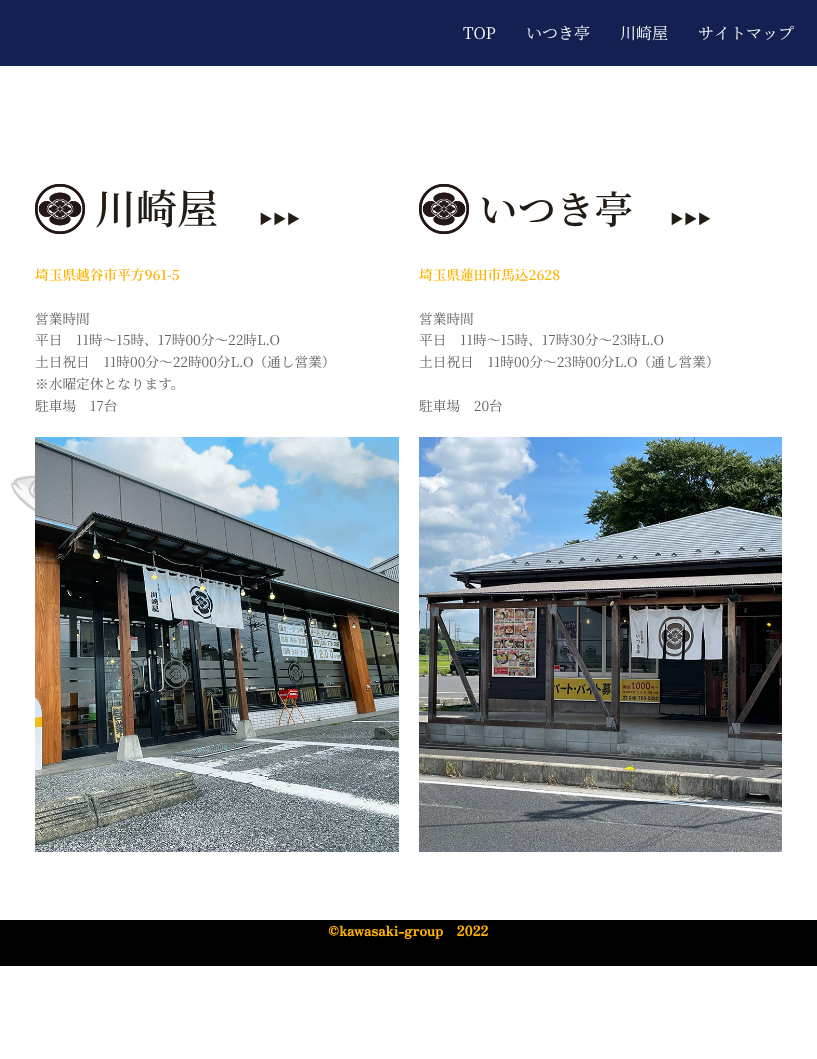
<!DOCTYPE html>
<meta charset="utf-8">
<style>body { margin: 0 } canvas { display: block }</style>
<canvas id="canvas" width="817" height="1059"></canvas>
<img id="img1" src="img_01.png" hidden>
<img id="img2" src="img_02.png" hidden>
<img id="img3" src="img_03.png" hidden>
<img id="img4" src="img_04.png" hidden>
<script>
window.onload = function () {
	const canvas = document.getElementById("canvas");
	const ctx = canvas.getContext("2d");
	ctx.miterLimit = 4;
	ctx.fontKerning = "normal";
	function txt(s, x, y) {
		ctx.fillText(s, x, y);
	}
	function fill(x, y, w, h) {
		ctx.fillRect(x, y, w, h);
	}
	function img(id, x, y, w, h) {
		ctx.drawImage(document.getElementById(id), x, y, w, h);
	}

	ctx.fillStyle = "#FFFFFF";
	fill(0, 0, 817, 1059);
	img("img1", 11, 440, 24, 168);
	ctx.fillStyle = "#142052";
	fill(0, 0, 817, 66);
	img("img2", 35, 184, 50, 50);
	img("img3", 35, 437, 364, 415);
	img("img2", 419, 184, 50, 50);
	img("img4", 419, 437, 363, 415);
	ctx.fillStyle = "#000000";
	fill(0, 920, 817, 46);
	ctx.font = "16px Noto Serif JP";
	ctx.fillStyle = "#FFFFFF";
	txt("TOP", 463, 39);
	txt("いつき亭", 526, 39);
	txt("川崎屋", 620, 39);
	txt("サイトマップ", 698, 39);
	ctx.font = "600 41px Noto Serif JP";
	ctx.fillStyle = "#241C14";
	txt("川崎屋", 95, 224);
	ctx.font = "600 13.7px Noto Serif JP";
	txt("▶︎▶︎▶︎", 259, 224);
	ctx.fillStyle = "#FFB100";
	txt("埼玉県越谷市平方961-5", 35, 280);
	ctx.font = "13.7px Noto Serif JP";
	ctx.fillStyle = "#606060";
	txt("営業時間", 35, 324);
	txt("平日　11時～15時、17時00分～22時L.O", 35, 345);
	txt("土日祝日　11時00分～22時00分L.O（通し営業）", 35, 367);
	txt("※水曜定休となります。", 35, 389);
	txt("駐車場　17台", 35, 411);
	ctx.font = "600 38.5px Noto Serif JP";
	ctx.fillStyle = "#241C14";
	txt("いつき亭", 479, 224);
	ctx.font = "600 13.7px Noto Serif JP";
	txt("▶︎▶︎▶︎", 670, 224);
	ctx.fillStyle = "#FFB100";
	txt("埼玉県蓮田市馬込2628", 419, 280);
	ctx.font = "13.7px Noto Serif JP";
	ctx.fillStyle = "#606060";
	txt("営業時間", 419, 324);
	txt("平日　11時～15時、17時30分～23時L.O", 419, 345);
	txt("土日祝日　11時00分～23時00分L.O（通し営業）", 419, 367);
	txt("駐車場　20台", 419, 411);
	ctx.font = "bold 13.7px Zen Antique";
	ctx.fillStyle = "#FFB100";
	txt("©︎kawasaki-group　2022", 328, 936);
};
</script>
